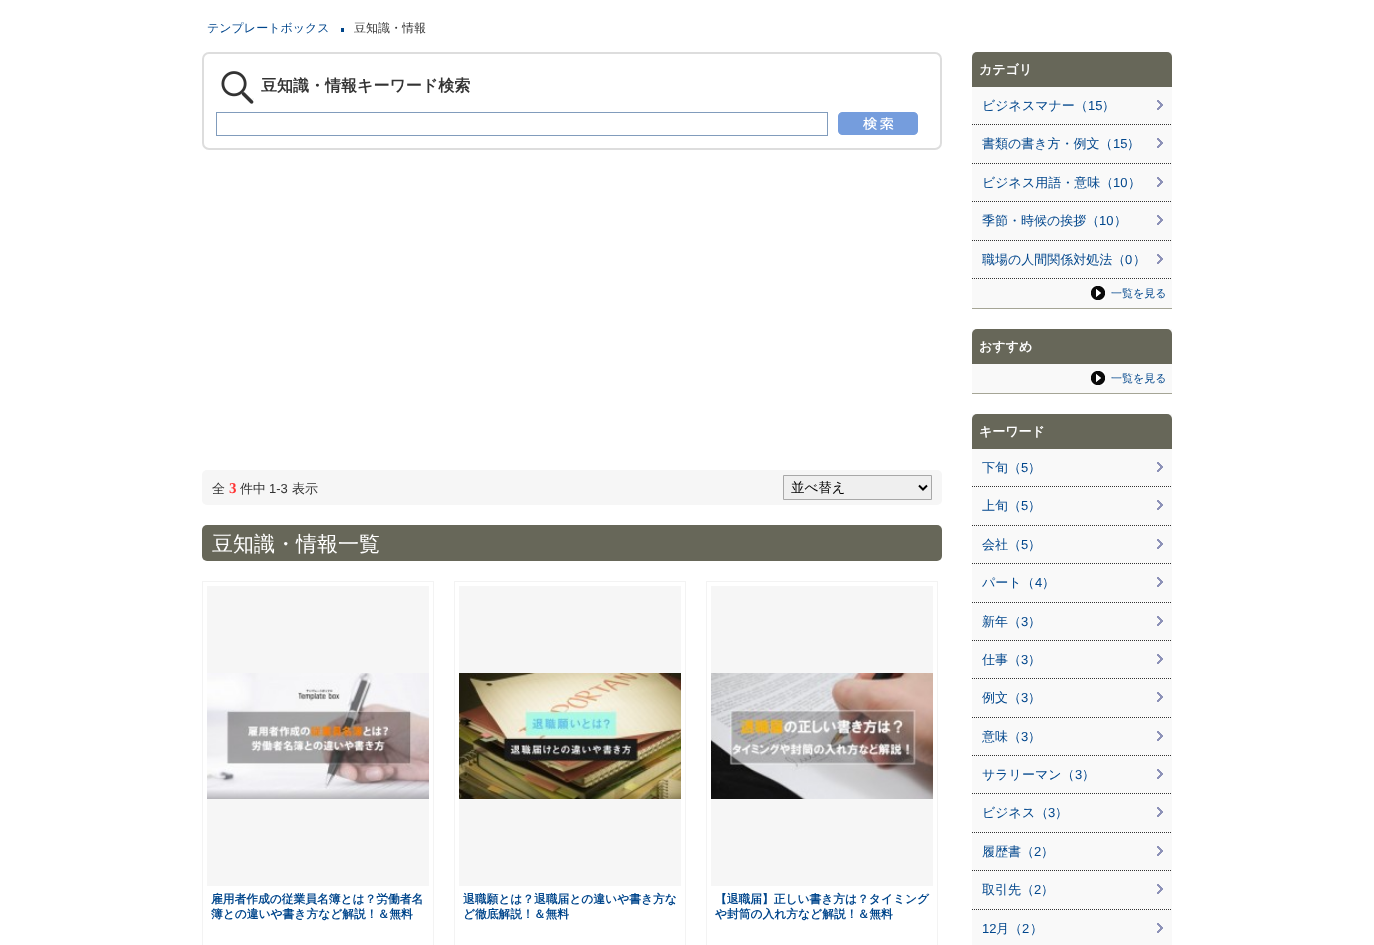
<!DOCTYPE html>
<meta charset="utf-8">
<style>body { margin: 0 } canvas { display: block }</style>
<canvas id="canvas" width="1374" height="945"></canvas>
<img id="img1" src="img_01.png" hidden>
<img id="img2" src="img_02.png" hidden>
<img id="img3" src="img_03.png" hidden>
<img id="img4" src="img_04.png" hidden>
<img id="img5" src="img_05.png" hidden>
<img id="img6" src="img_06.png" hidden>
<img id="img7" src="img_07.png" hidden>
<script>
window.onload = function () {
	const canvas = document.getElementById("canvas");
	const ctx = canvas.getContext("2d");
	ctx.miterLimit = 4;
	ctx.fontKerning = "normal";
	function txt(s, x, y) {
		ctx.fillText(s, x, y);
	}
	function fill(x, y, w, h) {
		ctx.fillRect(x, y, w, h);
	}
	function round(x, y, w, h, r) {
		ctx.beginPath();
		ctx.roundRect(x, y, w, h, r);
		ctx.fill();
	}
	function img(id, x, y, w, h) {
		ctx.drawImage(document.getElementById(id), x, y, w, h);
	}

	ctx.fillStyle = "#FFFFFF";
	fill(0, 0, 1374, 945);
	ctx.fillStyle = "#00458A";
	fill(341, 28, 3, 4);
	ctx.beginPath();
	ctx.roundRect(203, 53, 738, 96, 6);
	ctx.strokeStyle = "#DDDDDD";
	ctx.lineWidth = 2;
	ctx.stroke();
	img("img1", 221, 71, 33, 33);
	ctx.strokeStyle = "#819CBC";
	ctx.lineWidth = 1;
	ctx.strokeRect(216.5, 112.5, 611, 23);
	img("img2", 838, 112, 80, 23);
	ctx.fillStyle = "#F6F6F6";
	round(202, 470, 740, 35, 5);
	ctx.fillStyle = "#EFEFEF";
	ctx.beginPath();
	ctx.rect(783.5, 475.5, 148, 24);
	ctx.fill();
	ctx.strokeStyle = "#A8A8A8";
	ctx.stroke();
	ctx.beginPath();
	ctx.moveTo(919, 485.5);
	ctx.lineTo(923, 489.5);
	ctx.lineTo(927, 485.5);
	ctx.strokeStyle = "#000000";
	ctx.lineWidth = 2;
	ctx.stroke();
	ctx.fillStyle = "#676759";
	round(202, 525, 740, 36, 5);
	ctx.strokeStyle = "#F3F3F3";
	ctx.lineWidth = 1;
	ctx.strokeRect(202.5, 581.5, 231, 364);
	ctx.fillStyle = "#F6F6F6";
	fill(207, 586, 222, 300);
	img("img3", 207, 673, 222, 126);
	ctx.strokeRect(454.5, 581.5, 231, 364);
	fill(459, 586, 222, 300);
	img("img4", 459, 673, 222, 126);
	ctx.strokeRect(706.5, 581.5, 231, 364);
	fill(711, 586, 222, 300);
	img("img5", 711, 673, 222, 126);
	ctx.fillStyle = "#F9F9F9";
	fill(972, 52, 200, 256);
	ctx.fillStyle = "#A5A596";
	fill(972, 308, 200, 1);
	ctx.fillStyle = "#676759";
	ctx.beginPath();
	ctx.roundRect(972, 52, 200, 35, [5, 5, 0, 0]);
	ctx.fill();
	img("img6", 1157, 100, 6, 10);
	ctx.beginPath();
	ctx.moveTo(972, 124.5);
	ctx.lineTo(1172, 124.5);
	ctx.strokeStyle = "#333333";
	ctx.setLineDash([1, 1]);
	ctx.stroke();
	img("img6", 1157, 138, 6, 10);
	ctx.beginPath();
	ctx.moveTo(972, 163.5);
	ctx.lineTo(1172, 163.5);
	ctx.stroke();
	img("img6", 1157, 177, 6, 10);
	ctx.beginPath();
	ctx.moveTo(972, 201.5);
	ctx.lineTo(1172, 201.5);
	ctx.stroke();
	img("img6", 1157, 215, 6, 10);
	ctx.beginPath();
	ctx.moveTo(972, 240.5);
	ctx.lineTo(1172, 240.5);
	ctx.stroke();
	img("img6", 1157, 254, 6, 10);
	ctx.beginPath();
	ctx.moveTo(972, 278.5);
	ctx.lineTo(1172, 278.5);
	ctx.stroke();
	img("img7", 1091, 286, 14, 14);
	ctx.fillStyle = "#F9F9F9";
	fill(972, 329, 200, 64);
	ctx.fillStyle = "#A5A596";
	fill(972, 393, 200, 1);
	ctx.fillStyle = "#676759";
	ctx.beginPath();
	ctx.roundRect(972, 329, 200, 35, [5, 5, 0, 0]);
	ctx.fill();
	img("img7", 1091, 371, 14, 14);
	ctx.fillStyle = "#F9F9F9";
	fill(972, 414, 200, 531);
	ctx.fillStyle = "#676759";
	ctx.beginPath();
	ctx.roundRect(972, 414, 200, 35, [5, 5, 0, 0]);
	ctx.fill();
	img("img6", 1157, 462, 6, 10);
	ctx.beginPath();
	ctx.moveTo(972, 486.5);
	ctx.lineTo(1172, 486.5);
	ctx.stroke();
	img("img6", 1157, 500, 6, 10);
	ctx.beginPath();
	ctx.moveTo(972, 525.5);
	ctx.lineTo(1172, 525.5);
	ctx.stroke();
	img("img6", 1157, 539, 6, 10);
	ctx.beginPath();
	ctx.moveTo(972, 563.5);
	ctx.lineTo(1172, 563.5);
	ctx.stroke();
	img("img6", 1157, 577, 6, 10);
	ctx.beginPath();
	ctx.moveTo(972, 602.5);
	ctx.lineTo(1172, 602.5);
	ctx.stroke();
	img("img6", 1157, 616, 6, 10);
	ctx.beginPath();
	ctx.moveTo(972, 640.5);
	ctx.lineTo(1172, 640.5);
	ctx.stroke();
	img("img6", 1157, 654, 6, 10);
	ctx.beginPath();
	ctx.moveTo(972, 678.5);
	ctx.lineTo(1172, 678.5);
	ctx.stroke();
	img("img6", 1157, 692, 6, 10);
	ctx.beginPath();
	ctx.moveTo(972, 717.5);
	ctx.lineTo(1172, 717.5);
	ctx.stroke();
	img("img6", 1157, 731, 6, 10);
	ctx.beginPath();
	ctx.moveTo(972, 755.5);
	ctx.lineTo(1172, 755.5);
	ctx.stroke();
	img("img6", 1157, 769, 6, 10);
	ctx.beginPath();
	ctx.moveTo(972, 793.5);
	ctx.lineTo(1172, 793.5);
	ctx.stroke();
	img("img6", 1157, 807, 6, 10);
	ctx.beginPath();
	ctx.moveTo(972, 832.5);
	ctx.lineTo(1172, 832.5);
	ctx.stroke();
	img("img6", 1157, 846, 6, 10);
	ctx.beginPath();
	ctx.moveTo(972, 870.5);
	ctx.lineTo(1172, 870.5);
	ctx.stroke();
	img("img6", 1157, 884, 6, 10);
	ctx.beginPath();
	ctx.moveTo(972, 909.5);
	ctx.lineTo(1172, 909.5);
	ctx.stroke();
	img("img6", 1157, 923, 6, 10);
	ctx.font = "500 12px WenQuanYi Zen Hei";
	ctx.fillStyle = "#00468C";
	txt("テンプレートボックス", 207, 32);
	ctx.fillStyle = "#333333";
	txt("豆知識・情報", 354, 32);
	ctx.font = "bold 16px WenQuanYi Zen Hei";
	txt("豆知識・情報キーワード検索", 261, 91);
	ctx.font = "500 13px WenQuanYi Zen Hei";
	txt("全", 212, 493);
	ctx.font = "bold 15px Liberation Serif";
	ctx.fillStyle = "#FF3333";
	txt("3", 229, 493);
	ctx.font = "500 13px WenQuanYi Zen Hei";
	ctx.fillStyle = "#333333";
	txt("件中", 240, 493);
	ctx.font = "13px Liberation Sans";
	txt("1-3", 269, 493);
	ctx.font = "500 13px WenQuanYi Zen Hei";
	txt("表示", 292, 493);
	ctx.font = "500 13.5px WenQuanYi Zen Hei";
	ctx.fillStyle = "#000000";
	txt("並べ替え", 791, 492);
	ctx.font = "500 21px WenQuanYi Zen Hei";
	ctx.fillStyle = "#FFFFFF";
	txt("豆知識・情報一覧", 212, 551);
	ctx.font = "bold 11.75px WenQuanYi Zen Hei";
	ctx.fillStyle = "#00468C";
	txt("雇用者作成の従業員名簿とは？労働者名", 211, 903);
	txt("簿との違いや書き方など解説！＆無料", 211, 918);
	txt("退職願とは？退職届との違いや書き方な", 463, 903);
	txt("ど徹底解説！＆無料", 463, 918);
	txt("【退職届】正しい書き方は？タイミング", 715, 903);
	txt("や封筒の入れ方など解説！＆無料", 715, 918);
	ctx.font = "bold 13px WenQuanYi Zen Hei";
	ctx.fillStyle = "#FFFFFF";
	txt("カテゴリ", 979, 74);
	ctx.font = "500 13px WenQuanYi Zen Hei";
	ctx.fillStyle = "#00468C";
	txt("ビジネスマナー（", 982, 110);
	ctx.font = "13px Liberation Sans";
	txt("15", 1088, 110);
	ctx.font = "500 13px WenQuanYi Zen Hei";
	txt("）", 1102, 110);
	txt("書類の書き方・例文（", 982, 148);
	ctx.font = "13px Liberation Sans";
	txt("15", 1113, 148);
	ctx.font = "500 13px WenQuanYi Zen Hei";
	txt("）", 1127, 148);
	txt("ビジネス用語・意味（", 982, 187);
	ctx.font = "13px Liberation Sans";
	txt("10", 1113, 187);
	ctx.font = "500 13px WenQuanYi Zen Hei";
	txt("）", 1128, 187);
	txt("季節・時候の挨拶（", 982, 225);
	ctx.font = "13px Liberation Sans";
	txt("10", 1099, 225);
	ctx.font = "500 13px WenQuanYi Zen Hei";
	txt("）", 1114, 225);
	txt("職場の人間関係対処法（", 982, 264);
	ctx.font = "13px Liberation Sans";
	txt("0", 1125, 264);
	ctx.font = "500 13px WenQuanYi Zen Hei";
	txt("）", 1133, 264);
	ctx.font = "500 11px WenQuanYi Zen Hei";
	txt("一覧を見る", 1111, 297);
	ctx.font = "bold 13px WenQuanYi Zen Hei";
	ctx.fillStyle = "#FFFFFF";
	txt("おすすめ", 979, 351);
	ctx.font = "500 11px WenQuanYi Zen Hei";
	ctx.fillStyle = "#00468C";
	txt("一覧を見る", 1111, 382);
	ctx.font = "bold 13px WenQuanYi Zen Hei";
	ctx.fillStyle = "#FFFFFF";
	txt("キーワード", 979, 436);
	ctx.font = "500 13px WenQuanYi Zen Hei";
	ctx.fillStyle = "#00468C";
	txt("下旬（", 982, 472);
	ctx.font = "13px Liberation Sans";
	txt("5", 1021, 472);
	ctx.font = "500 13px WenQuanYi Zen Hei";
	txt("）", 1028, 472);
	txt("上旬（", 982, 510);
	ctx.font = "13px Liberation Sans";
	txt("5", 1021, 510);
	ctx.font = "500 13px WenQuanYi Zen Hei";
	txt("）", 1028, 510);
	txt("会社（", 982, 549);
	ctx.font = "13px Liberation Sans";
	txt("5", 1021, 549);
	ctx.font = "500 13px WenQuanYi Zen Hei";
	txt("）", 1028, 549);
	txt("パート（", 982, 587);
	ctx.font = "13px Liberation Sans";
	txt("4", 1035, 587);
	ctx.font = "500 13px WenQuanYi Zen Hei";
	txt("）", 1042, 587);
	txt("新年（", 982, 626);
	ctx.font = "13px Liberation Sans";
	txt("3", 1021, 626);
	ctx.font = "500 13px WenQuanYi Zen Hei";
	txt("）", 1028, 626);
	txt("仕事（", 982, 664);
	ctx.font = "13px Liberation Sans";
	txt("3", 1021, 664);
	ctx.font = "500 13px WenQuanYi Zen Hei";
	txt("）", 1028, 664);
	txt("例文（", 982, 702);
	ctx.font = "13px Liberation Sans";
	txt("3", 1021, 702);
	ctx.font = "500 13px WenQuanYi Zen Hei";
	txt("）", 1028, 702);
	txt("意味（", 982, 741);
	ctx.font = "13px Liberation Sans";
	txt("3", 1021, 741);
	ctx.font = "500 13px WenQuanYi Zen Hei";
	txt("）", 1028, 741);
	txt("サラリーマン（", 982, 779);
	ctx.font = "13px Liberation Sans";
	txt("3", 1075, 779);
	ctx.font = "500 13px WenQuanYi Zen Hei";
	txt("）", 1082, 779);
	txt("ビジネス（", 982, 817);
	ctx.font = "13px Liberation Sans";
	txt("3", 1048, 817);
	ctx.font = "500 13px WenQuanYi Zen Hei";
	txt("）", 1055, 817);
	txt("履歴書（", 982, 856);
	ctx.font = "13px Liberation Sans";
	txt("2", 1034, 856);
	ctx.font = "500 13px WenQuanYi Zen Hei";
	txt("）", 1041, 856);
	txt("取引先（", 982, 894);
	ctx.font = "13px Liberation Sans";
	txt("2", 1034, 894);
	ctx.font = "500 13px WenQuanYi Zen Hei";
	txt("）", 1041, 894);
	ctx.font = "13px Liberation Sans";
	txt("12", 982, 933);
	ctx.font = "500 13px WenQuanYi Zen Hei";
	txt("月（", 996, 933);
	ctx.font = "13px Liberation Sans";
	txt("2", 1022, 933);
	ctx.font = "500 13px WenQuanYi Zen Hei";
	txt("）", 1030, 933);
};
</script>
